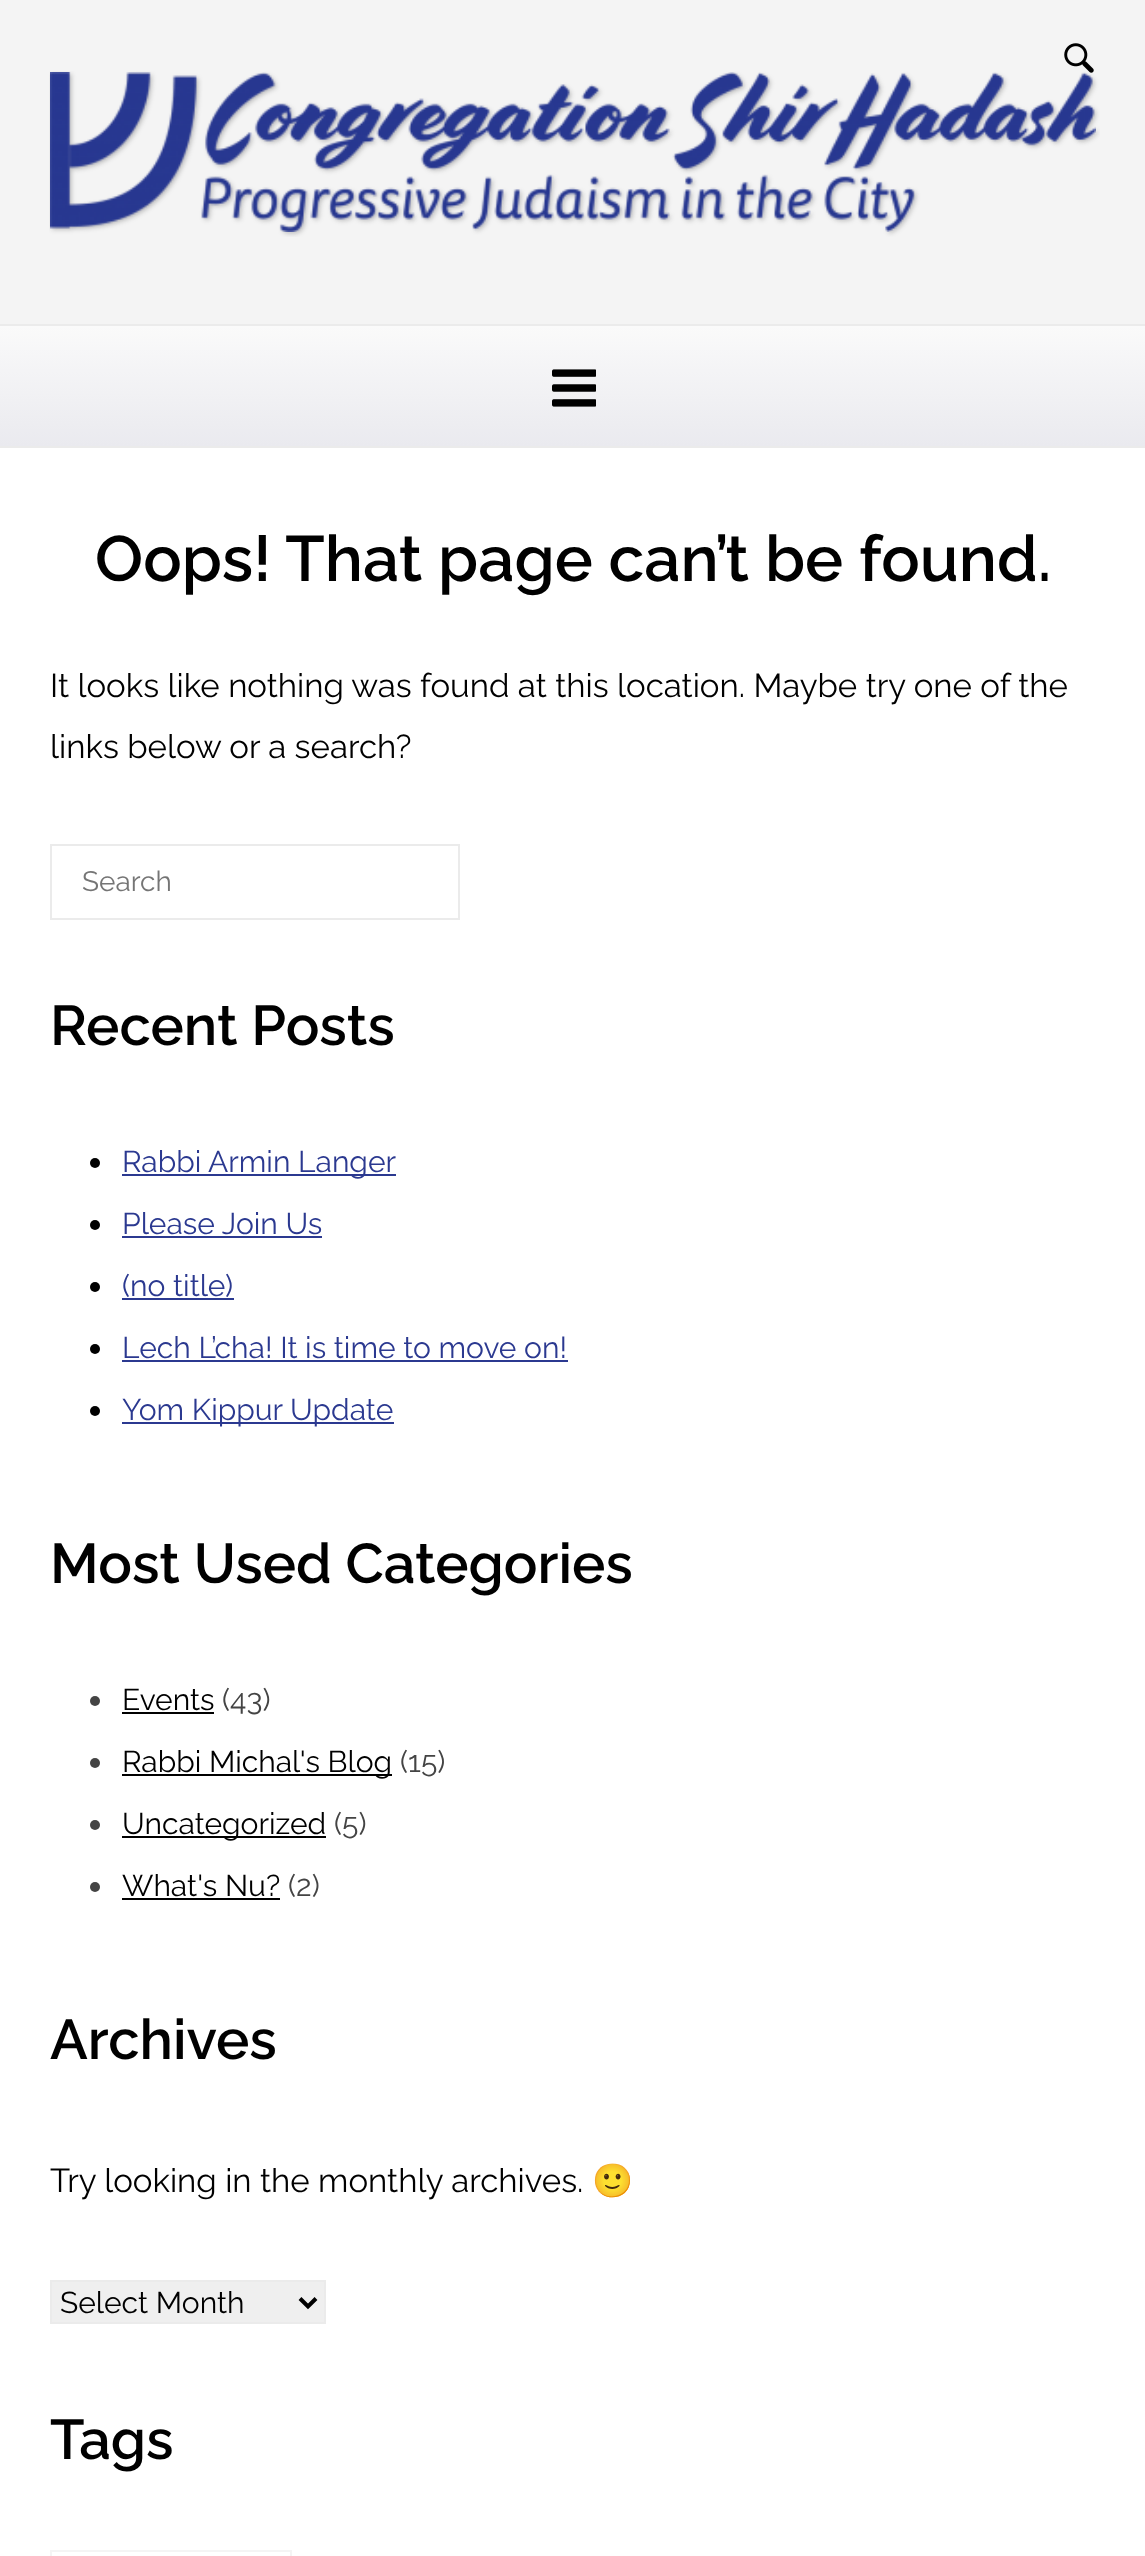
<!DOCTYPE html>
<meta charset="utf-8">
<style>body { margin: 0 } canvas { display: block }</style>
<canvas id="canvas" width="1145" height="2556"></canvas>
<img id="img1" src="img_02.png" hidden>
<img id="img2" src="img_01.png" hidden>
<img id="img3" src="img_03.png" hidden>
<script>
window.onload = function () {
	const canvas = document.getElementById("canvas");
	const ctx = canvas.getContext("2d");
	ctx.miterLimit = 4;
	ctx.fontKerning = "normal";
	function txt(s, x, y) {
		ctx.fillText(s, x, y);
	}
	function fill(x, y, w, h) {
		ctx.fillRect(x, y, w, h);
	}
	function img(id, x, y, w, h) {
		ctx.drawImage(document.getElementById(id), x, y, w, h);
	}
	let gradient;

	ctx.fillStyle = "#FFFFFF";
	fill(0, 0, 1145, 2556);
	ctx.fillStyle = "#F4F4F4";
	fill(0, 0, 1145, 324);
	ctx.fillStyle = "#EBEBEB";
	fill(0, 446, 1145, 2);
	img("img1", 49, 71, 1051, 166);
	img("img2", 1064, 43, 30, 30);
	gradient = ctx.createLinearGradient(573, 326, 573, 446);
	gradient.addColorStop(0, "#FAFAFA");
	gradient.addColorStop(1, "#EAEAEF");
	ctx.fillStyle = gradient;
	fill(0, 326, 1145, 120);
	ctx.fillStyle = "#EBEBEB";
	fill(0, 324, 1145, 2);
	img("img3", 552, 369, 44, 38);
	ctx.strokeStyle = "#EBEBEB";
	ctx.lineWidth = 2;
	ctx.strokeRect(51, 845, 408, 74);
	ctx.fillStyle = "#000000";
	ctx.beginPath();
	ctx.arc(95, 1163, 5, 0, Math.PI * 2);
	ctx.fill();
	ctx.fillStyle = "#2B3990";
	fill(122, 1174, 274, 2);
	ctx.fillStyle = "#000000";
	ctx.beginPath();
	ctx.arc(95, 1225, 5, 0, Math.PI * 2);
	ctx.fill();
	ctx.fillStyle = "#2B3990";
	fill(122, 1236, 200, 2);
	ctx.fillStyle = "#000000";
	ctx.beginPath();
	ctx.arc(95, 1287, 5, 0, Math.PI * 2);
	ctx.fill();
	ctx.fillStyle = "#2B3990";
	fill(122, 1298, 112, 2);
	ctx.fillStyle = "#000000";
	ctx.beginPath();
	ctx.arc(95, 1349, 5, 0, Math.PI * 2);
	ctx.fill();
	ctx.fillStyle = "#2B3990";
	fill(122, 1360, 446, 2);
	ctx.fillStyle = "#000000";
	ctx.beginPath();
	ctx.arc(95, 1411, 5, 0, Math.PI * 2);
	ctx.fill();
	ctx.fillStyle = "#2B3990";
	fill(122, 1422, 272, 2);
	ctx.fillStyle = "#444444";
	ctx.beginPath();
	ctx.arc(95, 1701, 5, 0, Math.PI * 2);
	ctx.fill();
	ctx.fillStyle = "#000000";
	fill(122, 1712, 92, 2);
	ctx.fillStyle = "#444444";
	ctx.beginPath();
	ctx.arc(95, 1763, 5, 0, Math.PI * 2);
	ctx.fill();
	ctx.fillStyle = "#000000";
	fill(122, 1774, 270, 2);
	ctx.fillStyle = "#444444";
	ctx.beginPath();
	ctx.arc(95, 1825, 5, 0, Math.PI * 2);
	ctx.fill();
	ctx.fillStyle = "#000000";
	fill(122, 1836, 204, 2);
	ctx.fillStyle = "#444444";
	ctx.beginPath();
	ctx.arc(95, 1887, 5, 0, Math.PI * 2);
	ctx.fill();
	ctx.fillStyle = "#000000";
	fill(122, 1898, 158, 2);
	ctx.fillStyle = "#EFEFEF";
	ctx.beginPath();
	ctx.rect(51, 2281, 274, 42);
	ctx.fill();
	ctx.stroke();
	ctx.beginPath();
	ctx.moveTo(300, 2298.5);
	ctx.lineTo(308, 2306.5);
	ctx.lineTo(316, 2298.5);
	ctx.strokeStyle = "#000000";
	ctx.lineWidth = 4;
	ctx.stroke();
	ctx.strokeStyle = "#F4F4F4";
	ctx.lineWidth = 2;
	ctx.strokeRect(51, 2551, 240, 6);
	ctx.font = "600 64px Raleway";
	ctx.fillStyle = "#000000";
	txt("Oops! That page can’t be found.", 95, 581);
	ctx.font = "33px Raleway";
	txt("It looks like nothing was found at this location. Maybe try one of the", 50, 697);
	txt("links below or a search?", 50, 758);
	ctx.font = "28px Raleway";
	ctx.fillStyle = "#757575";
	txt("Search", 82, 891);
	ctx.font = "600 56px Raleway";
	ctx.fillStyle = "#000000";
	txt("Recent Posts", 50, 1045);
	ctx.font = "30px Raleway";
	ctx.fillStyle = "#2B3990";
	txt("Rabbi Armin Langer", 122, 1172);
	txt("Please Join Us", 122, 1234);
	txt("(no title)", 122, 1296);
	txt("Lech L’cha! It is time to move on!", 122, 1358);
	txt("Yom Kippur Update", 122, 1420);
	ctx.font = "600 56px Raleway";
	ctx.fillStyle = "#000000";
	txt("Most Used Categories", 50, 1583);
	ctx.font = "30px Raleway";
	txt("Events", 122, 1710);
	ctx.fillStyle = "#444444";
	txt("(43)", 222, 1710);
	ctx.fillStyle = "#000000";
	txt("Rabbi Michal's Blog", 122, 1772);
	ctx.fillStyle = "#444444";
	txt("(15)", 400, 1772);
	ctx.fillStyle = "#000000";
	txt("Uncategorized", 122, 1834);
	ctx.fillStyle = "#444444";
	txt("(5)", 334, 1834);
	ctx.fillStyle = "#000000";
	txt("What's Nu?", 122, 1896);
	ctx.fillStyle = "#444444";
	txt("(2)", 288, 1896);
	ctx.font = "600 56px Raleway";
	ctx.fillStyle = "#000000";
	txt("Archives", 50, 2059);
	ctx.font = "33px Raleway";
	txt("Try looking in the monthly archives.", 50, 2192);
	ctx.font = "33px Noto Color Emoji";
	txt("🙂", 592, 2192);
	ctx.font = "30px Raleway";
	txt("Select Month", 60, 2313);
	ctx.font = "600 56px Raleway";
	txt("Tags", 50, 2459);
};
</script>
